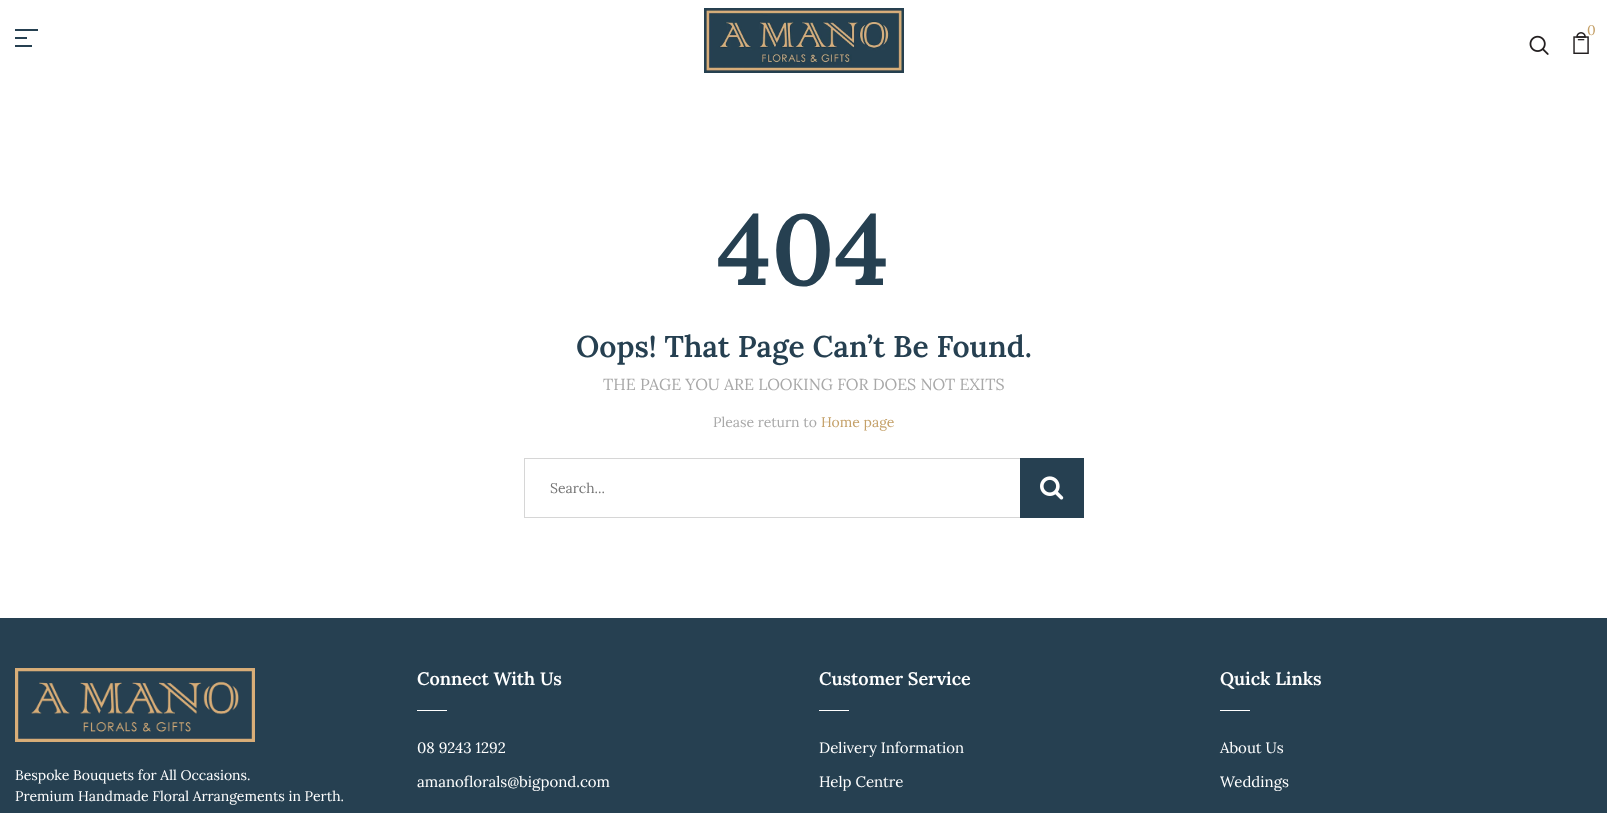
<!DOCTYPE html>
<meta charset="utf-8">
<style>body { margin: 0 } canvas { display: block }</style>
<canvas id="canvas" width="1607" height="813"></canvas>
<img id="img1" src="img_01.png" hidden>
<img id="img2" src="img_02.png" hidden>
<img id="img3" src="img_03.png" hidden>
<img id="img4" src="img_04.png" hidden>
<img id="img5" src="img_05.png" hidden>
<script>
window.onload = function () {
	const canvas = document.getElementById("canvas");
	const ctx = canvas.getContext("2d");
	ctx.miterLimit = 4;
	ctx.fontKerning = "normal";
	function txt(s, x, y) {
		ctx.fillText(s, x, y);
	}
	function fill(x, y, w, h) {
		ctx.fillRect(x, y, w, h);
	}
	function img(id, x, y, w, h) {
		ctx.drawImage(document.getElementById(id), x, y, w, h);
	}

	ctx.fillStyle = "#FFFFFF";
	fill(0, 0, 1607, 813);
	ctx.fillStyle = "#264051";
	fill(15, 29, 23, 2);
	fill(15, 37, 12, 2);
	fill(15, 45, 17, 2);
	img("img1", 704, 8, 200, 65);
	img("img2", 1573, 32, 16, 22);
	img("img3", 1529, 35, 20, 20);
	ctx.strokeStyle = "#D6D6D6";
	ctx.strokeRect(524.5, 458.5, 559, 59);
	fill(1020, 458, 64, 60);
	img("img4", 1040, 476, 24, 24);
	fill(0, 618, 1607, 195);
	img("img5", 15, 668, 240, 74);
	ctx.fillStyle = "#FFFFFF";
	fill(417, 710, 30, 1);
	fill(819, 710, 30, 1);
	fill(1220, 710, 30, 1);
	ctx.font = "14px Lora";
	ctx.fillStyle = "#C4A068";
	txt("0", 1587, 35);
	ctx.font = "600 100px Lora";
	ctx.fillStyle = "#264051";
	txt("404", 717, 285);
	ctx.font = "600 30px Lora";
	txt("Oops! That Page Can’t Be Found.", 576, 357);
	ctx.font = "16px Lora";
	ctx.fillStyle = "#A8A8A8";
	txt("THE PAGE YOU ARE LOOKING FOR DOES NOT EXITS", 603, 390);
	ctx.font = "14px Lora";
	txt("Please return to", 713, 427);
	ctx.fillStyle = "#C4A068";
	txt("Home page", 821, 427);
	ctx.fillStyle = "#757575";
	txt("Search...", 550, 493);
	ctx.fillStyle = "#FFFFFF";
	txt("Bespoke Bouquets for All Occasions.", 15, 780);
	txt("Premium Handmade Floral Arrangements in Perth.", 15, 801);
	ctx.font = "600 18px Lora";
	txt("Connect With Us", 417, 685);
	ctx.font = "15px Lora";
	txt("08 9243 1292", 417, 753);
	txt("amanoflorals@bigpond.com", 417, 787);
	ctx.font = "600 18px Lora";
	txt("Customer Service", 819, 685);
	ctx.font = "15px Lora";
	txt("Delivery Information", 819, 753);
	txt("Help Centre", 819, 787);
	ctx.font = "600 18px Lora";
	txt("Quick Links", 1220, 685);
	ctx.font = "15px Lora";
	txt("About Us", 1220, 753);
	txt("Weddings", 1220, 787);
};
</script>
